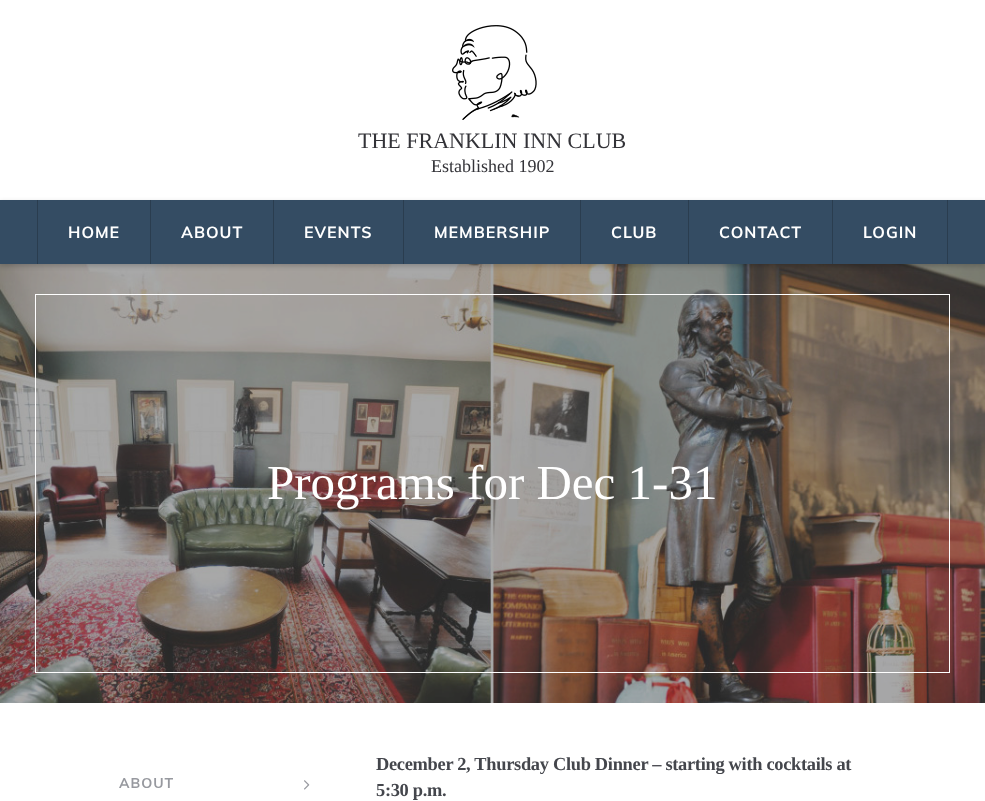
<!DOCTYPE html>
<meta charset="utf-8">
<style>body { margin: 0 } canvas { display: block }</style>
<canvas id="canvas" width="985" height="801"></canvas>
<img id="img1" src="img_01.png" hidden>
<img id="img2" src="img_02.png" hidden>
<img id="img3" src="img_03.png" hidden>
<script>
window.onload = function () {
	const canvas = document.getElementById("canvas");
	const ctx = canvas.getContext("2d");
	ctx.miterLimit = 4;
	ctx.fontKerning = "normal";
	function txt(s, x, y) {
		ctx.fillText(s, x, y);
	}
	function fill(x, y, w, h) {
		ctx.fillRect(x, y, w, h);
	}
	function img(id, x, y, w, h) {
		ctx.drawImage(document.getElementById(id), x, y, w, h);
	}

	ctx.fillStyle = "#FFFFFF";
	fill(0, 0, 985, 801);
	img("img1", 452, 25, 85, 95);
	img("img2", 0, 264, 985, 439);
	ctx.fillStyle = "rgba(0, 0, 0, 0.2)";
	ctx.filter = "blur(2.5px)";
	ctx.beginPath();
	ctx.rect(0, 202, 985, 64);
	ctx.fill();
	ctx.filter = "none";
	ctx.fillStyle = "#344C63";
	fill(0, 200, 985, 64);
	ctx.fillStyle = "#2A3D4F";
	fill(150, 200, 1, 64);
	fill(37, 200, 1, 64);
	fill(273, 200, 1, 64);
	fill(403, 200, 1, 64);
	fill(580, 200, 1, 64);
	fill(688, 200, 1, 64);
	fill(832, 200, 1, 64);
	fill(947, 200, 1, 64);
	ctx.strokeStyle = "#FFFFFF";
	ctx.strokeRect(35.5, 294.5, 914, 378);
	img("img3", 304, 780, 6, 10);
	ctx.font = "22px Liberation Serif";
	ctx.fillStyle = "#333338";
	txt("THE FRANKLIN INN CLUB", 358, 148);
	ctx.font = "18px Liberation Serif";
	txt("Established 1902", 431, 172);
	ctx.letterSpacing = "1px";
	ctx.font = "bold 16px Muli";
	ctx.fillStyle = "#FFFFFF";
	txt("HOME", 68, 238);
	txt("ABOUT", 181, 238);
	txt("EVENTS", 304, 238);
	txt("MEMBERSHIP", 434, 238);
	txt("CLUB", 611, 238);
	txt("CONTACT", 719, 238);
	txt("LOGIN", 863, 238);
	ctx.letterSpacing = "0px";
	ctx.font = "49px Liberation Serif";
	txt("Programs for Dec 1-31", 267, 499);
	ctx.letterSpacing = "1px";
	ctx.font = "bold 14px Muli";
	ctx.fillStyle = "#97999F";
	txt("ABOUT", 119, 788);
	ctx.letterSpacing = "-0.3px";
	ctx.font = "bold 18.4px Liberation Serif";
	ctx.fillStyle = "#44464C";
	txt("December 2, Thursday Club Dinner – starting with cocktails at", 376, 770);
	txt("5:30 p.m.", 376, 796);
};
</script>
